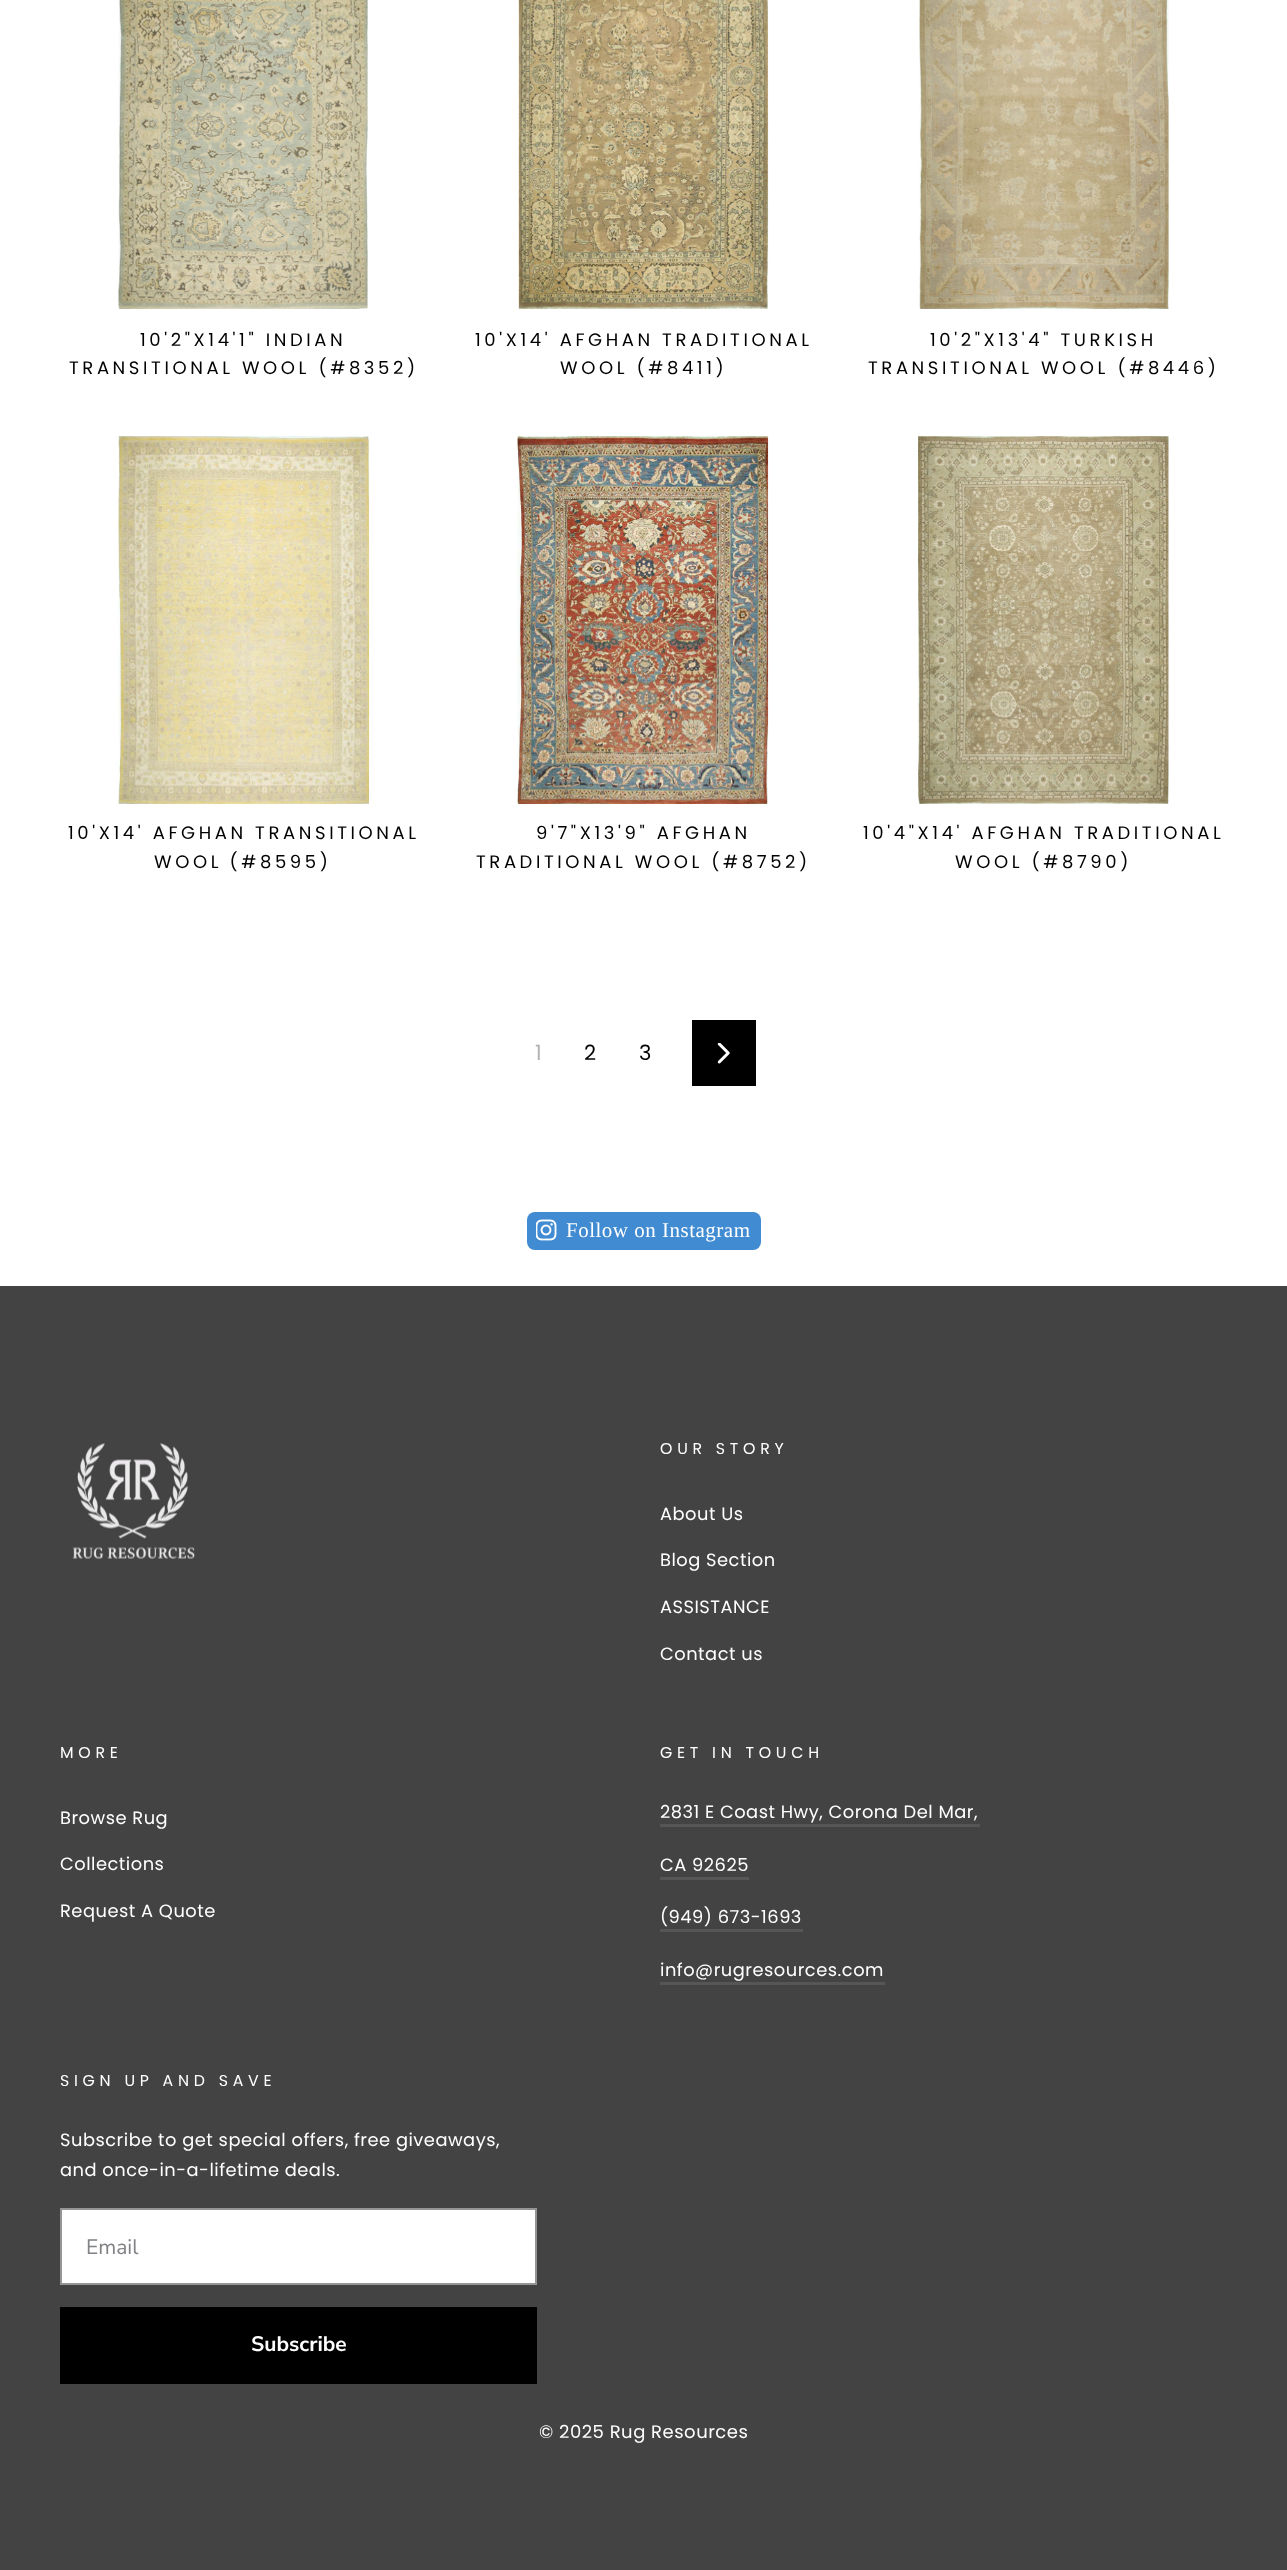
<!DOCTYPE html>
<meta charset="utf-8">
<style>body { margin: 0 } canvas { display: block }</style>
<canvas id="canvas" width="1287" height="2570"></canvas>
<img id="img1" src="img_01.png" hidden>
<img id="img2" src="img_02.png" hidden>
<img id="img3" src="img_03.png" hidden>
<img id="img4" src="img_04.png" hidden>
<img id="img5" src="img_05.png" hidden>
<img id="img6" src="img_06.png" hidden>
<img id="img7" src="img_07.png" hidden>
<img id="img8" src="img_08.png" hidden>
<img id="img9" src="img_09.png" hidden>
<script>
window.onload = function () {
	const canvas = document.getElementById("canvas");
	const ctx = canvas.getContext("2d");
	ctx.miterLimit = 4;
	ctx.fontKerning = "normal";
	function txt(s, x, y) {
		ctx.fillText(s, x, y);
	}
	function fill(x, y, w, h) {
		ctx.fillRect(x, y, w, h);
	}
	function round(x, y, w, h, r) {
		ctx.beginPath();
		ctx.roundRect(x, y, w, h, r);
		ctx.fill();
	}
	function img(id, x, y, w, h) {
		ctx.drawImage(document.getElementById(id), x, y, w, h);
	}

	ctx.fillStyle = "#FFFFFF";
	fill(0, 0, 1287, 2570);
	img("img1", 118, 0, 250, 309);
	img("img2", 518, 0, 251, 309);
	img("img3", 919, 0, 250, 309);
	img("img4", 118, 436, 252, 368);
	img("img5", 517, 436, 252, 368);
	img("img6", 918, 436, 251, 368);
	ctx.fillStyle = "#000000";
	fill(692, 1020, 64, 66);
	img("img7", 717, 1043, 13, 21);
	ctx.fillStyle = "#408BD1";
	round(527, 1212, 234, 38, 8);
	img("img8", 536, 1219, 21, 22);
	ctx.fillStyle = "#434343";
	fill(0, 1286, 1287, 1284);
	img("img9", 72, 1443, 123, 116);
	ctx.fillStyle = "#565656";
	fill(660, 1824, 320, 3);
	fill(660, 1877, 89, 3);
	fill(660, 1929, 143, 3);
	fill(660, 1982, 225, 3);
	ctx.fillStyle = "#FFFFFF";
	ctx.beginPath();
	ctx.rect(61, 2209, 475, 75);
	ctx.fill();
	ctx.strokeStyle = "#949596";
	ctx.lineWidth = 2;
	ctx.stroke();
	ctx.fillStyle = "#000000";
	fill(60, 2307, 477, 77);
	ctx.letterSpacing = "3.6px";
	ctx.font = "18px Poppins";
	txt("10'2\"X14'1\" INDIAN", 140, 346);
	txt("TRANSITIONAL WOOL (#8352)", 69, 374);
	txt("10'X14' AFGHAN TRADITIONAL", 475, 346);
	txt("WOOL (#8411)", 560, 374);
	txt("10'2\"X13'4\" TURKISH", 930, 346);
	txt("TRANSITIONAL WOOL (#8446)", 868, 374);
	txt("10'X14' AFGHAN TRANSITIONAL", 68, 839);
	ctx.wordSpacing = "-1px";
	txt("WOOL (#8595)", 154, 868);
	ctx.wordSpacing = "0px";
	txt("9'7\"X13'9\" AFGHAN", 536, 839);
	txt("TRADITIONAL WOOL (#8752)", 476, 868);
	txt("10'4\"X14' AFGHAN TRADITIONAL", 863, 839);
	txt("WOOL (#8790)", 955, 868);
	ctx.letterSpacing = "0.5px";
	ctx.font = "21px Poppins";
	ctx.fillStyle = "#B3B3B3";
	txt("1", 535, 1060);
	ctx.fillStyle = "#000000";
	txt("2", 584, 1060);
	txt("3", 639, 1060);
	ctx.font = "21px Liberation Serif";
	ctx.fillStyle = "#FFFFFF";
	txt("Follow on Instagram", 566, 1237);
	ctx.letterSpacing = "4.75px";
	ctx.font = "15.75px Poppins";
	txt("OUR STORY", 660, 1454);
	ctx.letterSpacing = "0.5px";
	ctx.font = "17.85px Poppins";
	txt("About Us", 660, 1520);
	txt("Blog Section", 660, 1566);
	txt("ASSISTANCE", 660, 1613);
	txt("Contact us", 660, 1660);
	ctx.letterSpacing = "4.75px";
	ctx.font = "15.75px Poppins";
	txt("MORE", 60, 1758);
	ctx.letterSpacing = "0.5px";
	ctx.font = "17.85px Poppins";
	txt("Browse Rug", 60, 1824);
	txt("Collections", 60, 1870);
	txt("Request A Quote", 60, 1917);
	ctx.letterSpacing = "4.75px";
	ctx.font = "15.75px Poppins";
	txt("GET IN TOUCH", 660, 1758);
	ctx.letterSpacing = "0.5px";
	ctx.font = "17.85px Poppins";
	txt("2831 E Coast Hwy, Corona Del Mar,", 660, 1818);
	txt("CA 92625", 660, 1871);
	txt("(949) 673-1693", 660, 1923);
	txt("info@rugresources.com", 660, 1976);
	ctx.letterSpacing = "4.75px";
	ctx.font = "15.75px Poppins";
	txt("SIGN UP AND SAVE", 60, 2086);
	ctx.letterSpacing = "0.5px";
	ctx.font = "17.85px Poppins";
	txt("Subscribe to get special offers, free giveaways,", 60, 2146);
	txt("and once-in-a-lifetime deals.", 60, 2176);
	ctx.letterSpacing = "0px";
	ctx.font = "21px Nunito Sans";
	ctx.fillStyle = "#808285";
	txt("Email", 86, 2254);
	ctx.font = "bold 21px Nunito Sans";
	ctx.fillStyle = "#FFFFFF";
	txt("Subscribe", 251, 2351);
	ctx.letterSpacing = "0.5px";
	ctx.font = "18px Poppins";
	txt("© 2025 Rug Resources", 539, 2438);
};
</script>
